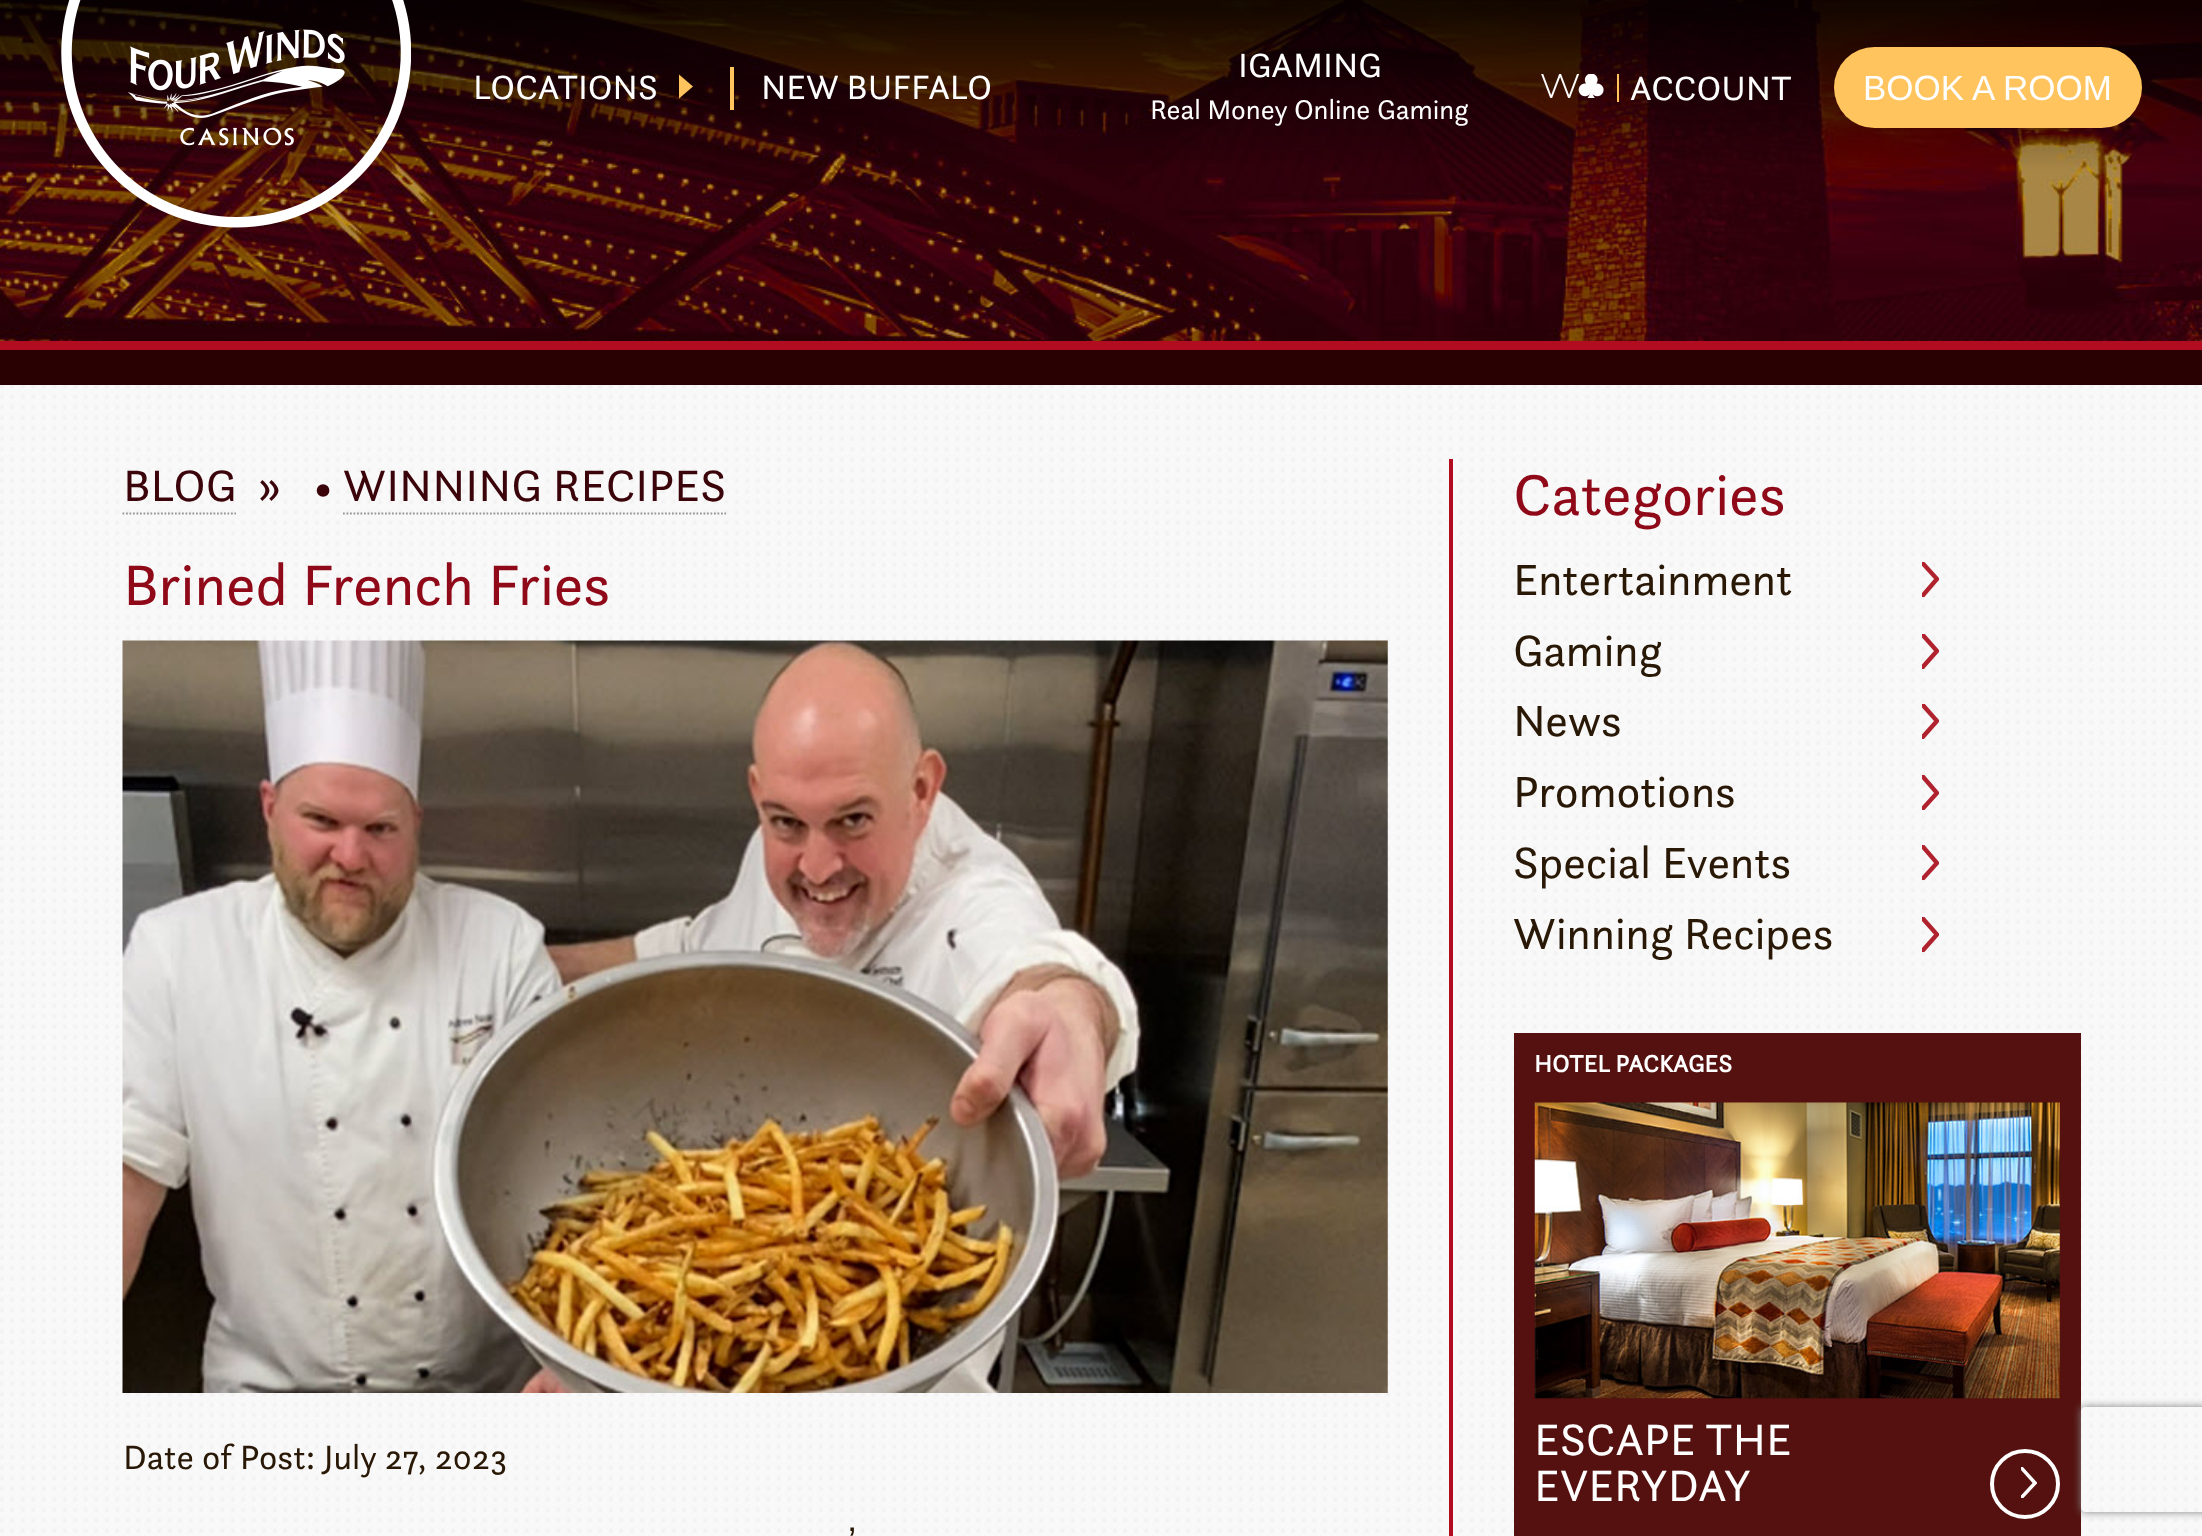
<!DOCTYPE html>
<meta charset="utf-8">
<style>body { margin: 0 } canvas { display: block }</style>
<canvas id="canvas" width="2202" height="1536"></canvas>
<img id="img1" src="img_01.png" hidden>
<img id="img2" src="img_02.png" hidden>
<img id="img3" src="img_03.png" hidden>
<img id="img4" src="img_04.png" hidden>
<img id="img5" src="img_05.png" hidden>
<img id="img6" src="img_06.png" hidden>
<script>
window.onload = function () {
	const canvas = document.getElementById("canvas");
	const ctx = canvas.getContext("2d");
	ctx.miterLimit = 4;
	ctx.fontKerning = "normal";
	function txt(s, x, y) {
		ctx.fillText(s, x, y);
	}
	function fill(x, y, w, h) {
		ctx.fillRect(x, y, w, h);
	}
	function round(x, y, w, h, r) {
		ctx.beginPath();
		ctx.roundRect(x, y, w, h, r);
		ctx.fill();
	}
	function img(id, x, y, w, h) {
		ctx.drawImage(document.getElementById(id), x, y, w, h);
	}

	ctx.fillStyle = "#290102";
	fill(0, 0, 2202, 1536);
	img("img1", 0, 0, 2202, 341);
	ctx.fillStyle = "#B10C20";
	fill(0, 341, 2202, 9);
	img("img2", 61, 0, 350, 228);
	ctx.fillStyle = "#FFC45E";
	ctx.beginPath();
	ctx.moveTo(679, 98.5);
	ctx.lineTo(679, 74.5);
	ctx.lineTo(693, 86.5);
	ctx.closePath();
	ctx.fill();
	fill(730, 67, 4, 43);
	fill(1617, 74, 2, 28);
	img("img3", 1541, 74, 63, 24);
	round(1834, 47, 308, 81, 40.5);
	img("img4", 0, 385, 2202, 1151);
	ctx.beginPath();
	ctx.moveTo(122.5, 513.5);
	ctx.lineTo(236, 513.5);
	ctx.strokeStyle = "#949494";
	ctx.lineWidth = 1.8;
	ctx.setLineDash([1.75, 1.75]);
	ctx.stroke();
	ctx.beginPath();
	ctx.moveTo(343, 513.5);
	ctx.lineTo(726, 513.5);
	ctx.stroke();
	img("img5", 122, 640, 1266, 753);
	ctx.fillStyle = "#B10C20";
	fill(1449, 459, 4, 1077);
	ctx.save();
	ctx.beginPath();
	ctx.rect(1922, 562, 17, 35);
	ctx.clip();
	ctx.beginPath();
	ctx.moveTo(1921.5, 562);
	ctx.lineTo(1937, 579);
	ctx.lineTo(1921.5, 597);
	ctx.strokeStyle = "#B0232E";
	ctx.lineWidth = 4.4;
	ctx.setLineDash([]);
	ctx.stroke();
	ctx.restore();
	ctx.save();
	ctx.beginPath();
	ctx.rect(1922, 634, 17, 35);
	ctx.clip();
	ctx.beginPath();
	ctx.moveTo(1921.5, 633.5);
	ctx.lineTo(1937, 651);
	ctx.lineTo(1921.5, 668.5);
	ctx.strokeStyle = "#B0232E";
	ctx.lineWidth = 4.4;
	ctx.setLineDash([]);
	ctx.stroke();
	ctx.restore();
	ctx.save();
	ctx.beginPath();
	ctx.rect(1922, 704, 17, 35);
	ctx.clip();
	ctx.beginPath();
	ctx.moveTo(1921.5, 703.5);
	ctx.lineTo(1937, 721);
	ctx.lineTo(1921.5, 738.5);
	ctx.strokeStyle = "#B0232E";
	ctx.lineWidth = 4.4;
	ctx.setLineDash([]);
	ctx.stroke();
	ctx.restore();
	ctx.save();
	ctx.beginPath();
	ctx.rect(1922, 775, 17, 35);
	ctx.clip();
	ctx.beginPath();
	ctx.moveTo(1921.5, 775);
	ctx.lineTo(1937, 793);
	ctx.lineTo(1921.5, 810);
	ctx.strokeStyle = "#B0232E";
	ctx.lineWidth = 4.4;
	ctx.setLineDash([]);
	ctx.stroke();
	ctx.restore();
	ctx.save();
	ctx.beginPath();
	ctx.rect(1922, 845, 17, 35);
	ctx.clip();
	ctx.beginPath();
	ctx.moveTo(1921.5, 845);
	ctx.lineTo(1937, 863);
	ctx.lineTo(1921.5, 880);
	ctx.strokeStyle = "#B0232E";
	ctx.lineWidth = 4.4;
	ctx.setLineDash([]);
	ctx.stroke();
	ctx.restore();
	ctx.save();
	ctx.beginPath();
	ctx.rect(1922, 917, 17, 35);
	ctx.clip();
	ctx.beginPath();
	ctx.moveTo(1921.5, 917);
	ctx.lineTo(1937, 934.5);
	ctx.lineTo(1921.5, 952);
	ctx.strokeStyle = "#B0232E";
	ctx.lineWidth = 4.4;
	ctx.setLineDash([]);
	ctx.stroke();
	ctx.restore();
	ctx.fillStyle = "#54110F";
	fill(1514, 1033, 567, 503);
	img("img6", 1534, 1102, 526, 297);
	ctx.beginPath();
	ctx.arc(2025, 1484, 33, 0, Math.PI * 2);
	ctx.strokeStyle = "#FEFEFE";
	ctx.lineWidth = 4;
	ctx.setLineDash([]);
	ctx.stroke();
	ctx.save();
	ctx.beginPath();
	ctx.rect(2021, 1467, 16, 31);
	ctx.clip();
	ctx.beginPath();
	ctx.moveTo(2021, 1467.5);
	ctx.lineTo(2035, 1483);
	ctx.lineTo(2021, 1498);
	ctx.lineWidth = 3.5;
	ctx.lineCap = "round";
	ctx.stroke();
	ctx.restore();
	ctx.save();
	ctx.beginPath();
	ctx.moveTo(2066, 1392);
	ctx.lineTo(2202, 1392);
	ctx.lineTo(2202, 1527);
	ctx.lineTo(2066, 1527);
	ctx.closePath();
	ctx.moveTo(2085, 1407);
	ctx.lineTo(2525, 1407);
	ctx.bezierCurveTo(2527, 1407, 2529, 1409, 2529, 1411);
	ctx.lineTo(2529, 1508);
	ctx.bezierCurveTo(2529, 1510, 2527, 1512, 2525, 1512);
	ctx.lineTo(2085, 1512);
	ctx.bezierCurveTo(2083, 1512, 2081, 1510, 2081, 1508);
	ctx.lineTo(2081, 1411);
	ctx.bezierCurveTo(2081, 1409, 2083, 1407, 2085, 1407);
	ctx.closePath();
	ctx.clip("evenodd");
	ctx.fillStyle = "#808080";
	ctx.filter = "blur(4.5px)";
	ctx.beginPath();
	ctx.roundRect(2081, 1407, 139, 105, 4);
	ctx.fill();
	ctx.filter = "none";
	ctx.restore();
	ctx.font = "35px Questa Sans";
	ctx.fillStyle = "#FEFEFE";
	txt("LOCATIONS", 473, 99);
	txt("NEW BUFFALO", 761, 99);
	txt("IGAMING", 1238, 77);
	ctx.font = "28px Questa Sans";
	txt("Real Money Online Gaming", 1150, 119);
	ctx.font = "35px Questa Sans";
	txt("ACCOUNT", 1630, 100);
	ctx.font = "35px Liberation Sans";
	txt("BOOK A ROOM", 1863, 100);
	ctx.font = "45.75px Questa Sans";
	ctx.fillStyle = "#3B040A";
	txt("BLOG", 123, 501);
	txt("»", 258, 501);
	txt("•", 313, 501);
	txt("WINNING RECIPES", 343, 501);
	ctx.font = "59.5px Questa Sans";
	ctx.fillStyle = "#8F0919";
	txt("Brined French Fries", 123, 605);
	ctx.font = "35px Questa Sans";
	ctx.fillStyle = "#291806";
	txt("Date of Post: July 27, 2023", 123, 1469);
	ctx.font = "37px Liberation Sans";
	txt("’", 848, 1553);
	ctx.font = "59.5px Questa Sans";
	ctx.fillStyle = "#8F0919";
	txt("Categories", 1513, 515);
	ctx.font = "45.5px Questa Sans";
	ctx.fillStyle = "#291806";
	txt("Entertainment", 1513, 595);
	txt("Gaming", 1513, 666);
	txt("News", 1513, 736);
	txt("Promotions", 1513, 807);
	txt("Special Events", 1513, 878);
	txt("Winning Recipes", 1513, 949);
	ctx.font = "bold 24.5px Questa Sans";
	ctx.fillStyle = "#FEFEFE";
	txt("HOTEL PACKAGES", 1534, 1072);
	ctx.font = "45.75px Questa Sans";
	txt("ESCAPE THE", 1534, 1455);
	txt("EVERYDAY", 1534, 1501);
};
</script>
